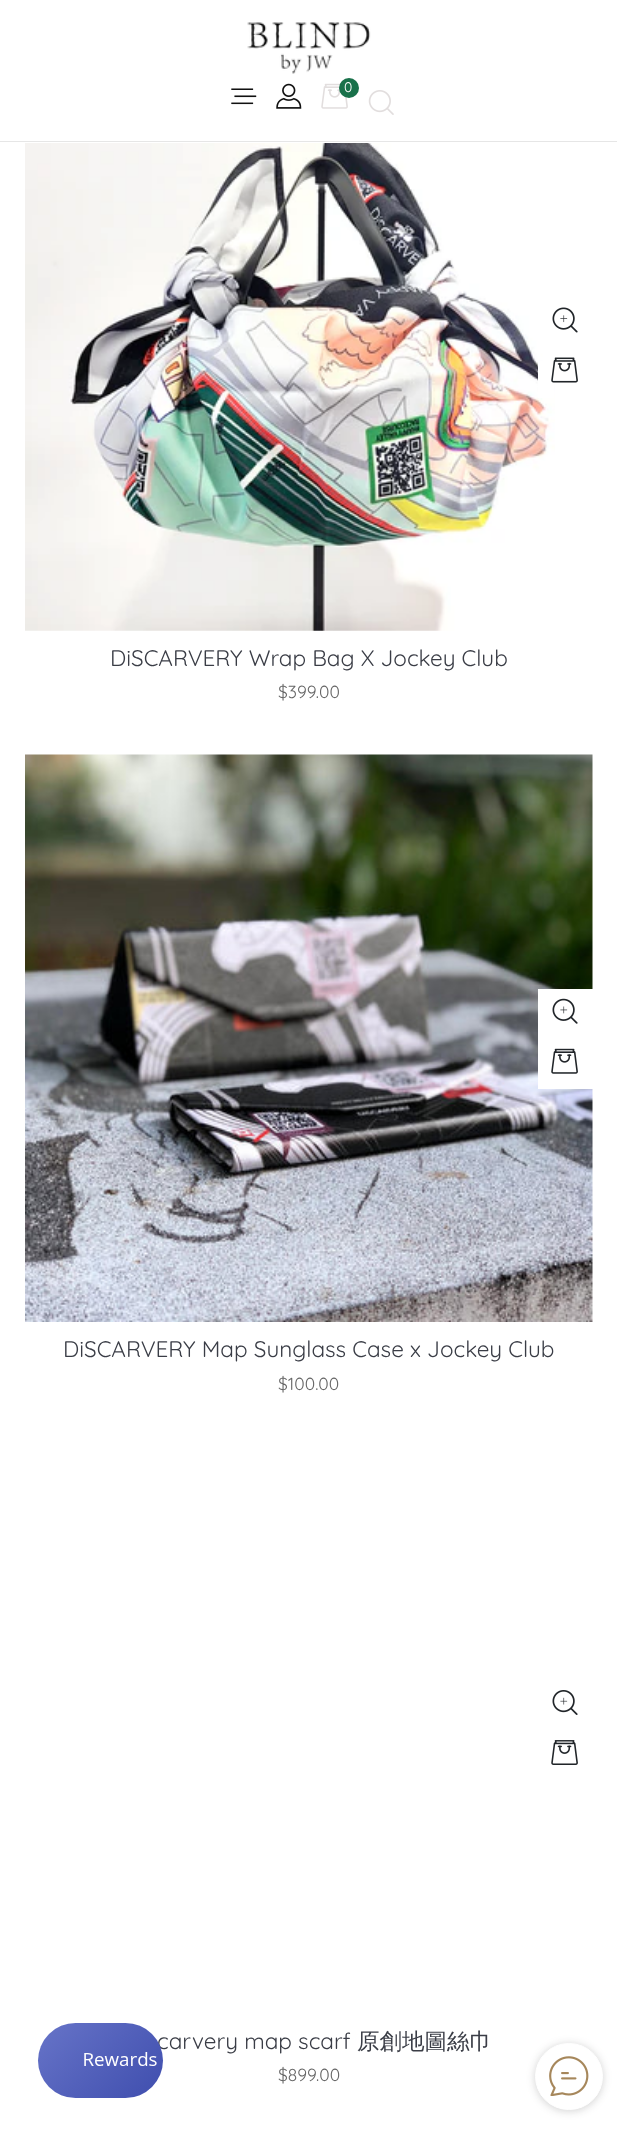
<!DOCTYPE html>
<meta charset="utf-8">
<style>body { margin: 0 } canvas { display: block }</style>
<canvas id="canvas" width="617" height="2135"></canvas>
<img id="img1" src="img_01.png" hidden>
<img id="img2" src="img_02.png" hidden>
<img id="img3" src="img_03.png" hidden>
<img id="img4" src="img_04.png" hidden>
<img id="img5" src="img_05.png" hidden>
<img id="img6" src="img_06.png" hidden>
<img id="img7" src="img_07.png" hidden>
<img id="img8" src="img_08.png" hidden>
<img id="img9" src="img_09.png" hidden>
<img id="img10" src="img_10.png" hidden>
<img id="img11" src="img_11.png" hidden>
<img id="img12" src="img_12.png" hidden>
<img id="img13" src="img_13.png" hidden>
<img id="img14" src="img_15.png" hidden>
<img id="img15" src="img_14.png" hidden>
<script>
window.onload = function () {
	const canvas = document.getElementById("canvas");
	const ctx = canvas.getContext("2d");
	ctx.miterLimit = 4;
	ctx.fontKerning = "normal";
	function txt(s, x, y) {
		ctx.fillText(s, x, y);
	}
	function fill(x, y, w, h) {
		ctx.fillRect(x, y, w, h);
	}
	function round(x, y, w, h, r) {
		ctx.beginPath();
		ctx.roundRect(x, y, w, h, r);
		ctx.fill();
	}
	function img(id, x, y, w, h) {
		ctx.drawImage(document.getElementById(id), x, y, w, h);
	}
	let gradient;

	ctx.fillStyle = "#FFFFFF";
	fill(0, 0, 617, 2135);
	ctx.fillStyle = "#E6E6E6";
	fill(0, 141, 617, 1);
	img("img1", 247, 22, 124, 52);
	img("img2", 231, 88, 26, 17);
	img("img3", 276, 83, 26, 26);
	img("img4", 321, 83, 27, 26);
	ctx.fillStyle = "#19714A";
	ctx.beginPath();
	ctx.arc(349, 88, 10, 0, Math.PI * 2);
	ctx.fill();
	img("img5", 368, 90, 26, 25);
	img("img6", 25, 143, 530, 488);
	ctx.fillStyle = "#FFFFFF";
	fill(538, 361, 16, 37);
	img("img7", 552, 307, 26, 26);
	img("img8", 551, 357, 27, 26);
	img("img9", 25, 754, 568, 568);
	fill(538, 989, 55, 100);
	img("img10", 552, 998, 26, 26);
	img("img11", 551, 1048, 27, 26);
	img("img12", 552, 1690, 26, 25);
	img("img13", 551, 1740, 27, 25);
	ctx.fillStyle = "rgba(27, 27, 27, 0.2)";
	ctx.filter = "blur(4px)";
	ctx.beginPath();
	ctx.roundRect(535, 2044, 68, 67, 33.5);
	ctx.fill();
	ctx.filter = "none";
	ctx.fillStyle = "#FFFFFF";
	ctx.beginPath();
	ctx.roundRect(535.5, 2043.5, 67, 66, 33);
	ctx.fill();
	ctx.strokeStyle = "#FFFFFF";
	ctx.stroke();
	img("img14", 549, 2056, 40, 40);
	ctx.font = "300 14px Quicksand";
	txt("0", 344, 92);
	ctx.font = "300 22.5px Quicksand";
	ctx.fillStyle = "#3A3D46";
	txt("DiSCARVERY Wrap Bag X Jockey Club", 110, 666);
	ctx.font = "300 17.5px Quicksand";
	ctx.fillStyle = "#666666";
	txt("$399.00", 278, 698);
	ctx.font = "300 22.5px Quicksand";
	ctx.fillStyle = "#3A3D46";
	txt("DiSCARVERY Map Sunglass Case x Jockey Club", 63, 1357);
	ctx.font = "300 17.5px Quicksand";
	ctx.fillStyle = "#666666";
	txt("$100.00", 278, 1390);
	ctx.font = "300 22.5px Quicksand";
	ctx.fillStyle = "#3A3D46";
	txt("carvery map scarf", 157, 2049);
	ctx.font = "500 22.5px WenQuanYi Zen Hei";
	txt("原創地圖絲巾", 357, 2049);
	ctx.font = "300 17.5px Quicksand";
	ctx.fillStyle = "#666666";
	txt("$899.00", 278, 2081);
	gradient = ctx.createLinearGradient(50, 2010, 150, 2110);
	gradient.addColorStop(0, "#6774C8");
	gradient.addColorStop(1, "#3F4EAE");
	ctx.fillStyle = gradient;
	round(38, 2023, 125, 75, 37.5);
	img("img15", 84, 2052, 73, 14);
};
</script>
